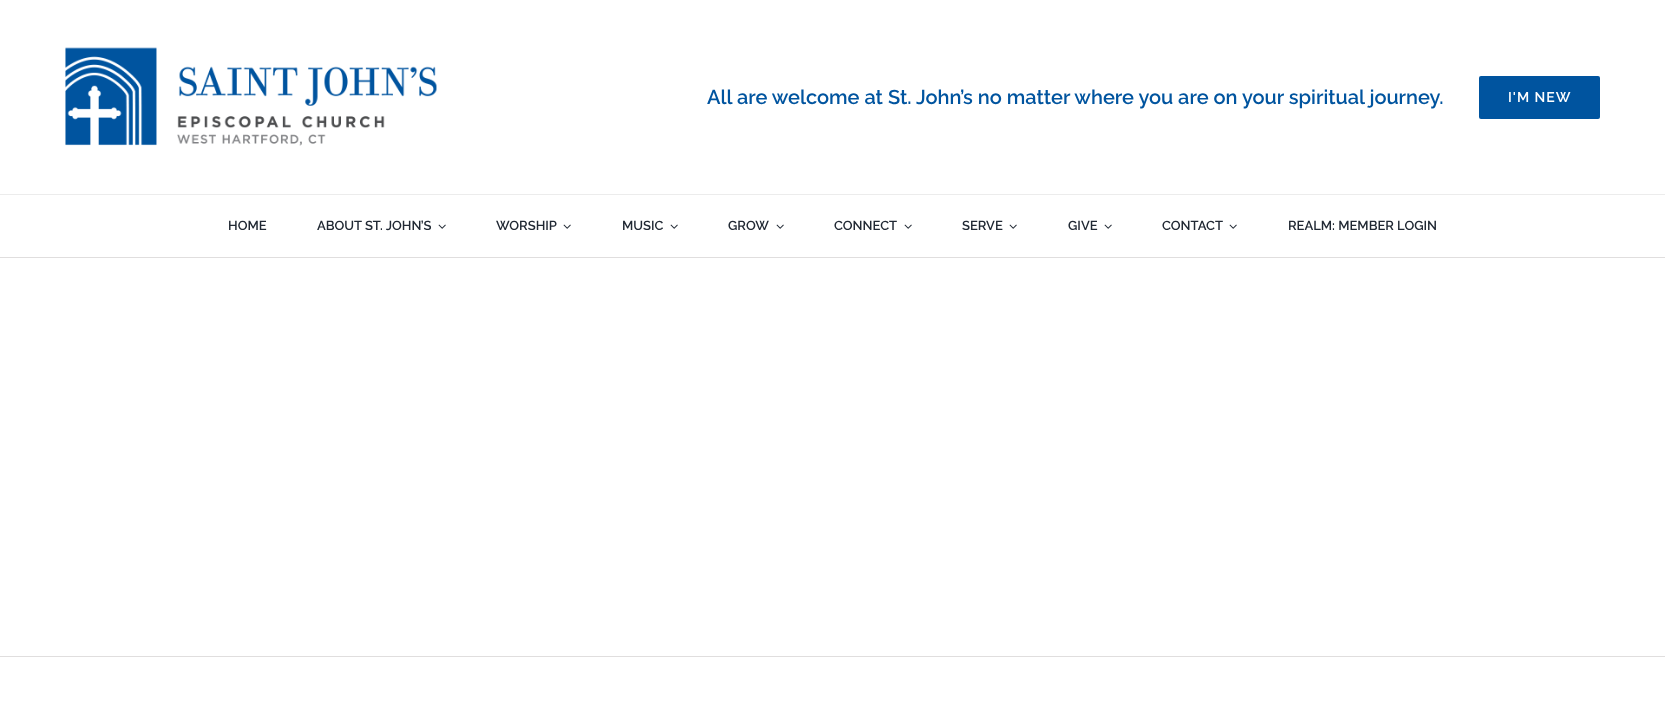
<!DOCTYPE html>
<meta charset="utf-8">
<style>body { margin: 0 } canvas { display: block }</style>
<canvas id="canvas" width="1665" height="727"></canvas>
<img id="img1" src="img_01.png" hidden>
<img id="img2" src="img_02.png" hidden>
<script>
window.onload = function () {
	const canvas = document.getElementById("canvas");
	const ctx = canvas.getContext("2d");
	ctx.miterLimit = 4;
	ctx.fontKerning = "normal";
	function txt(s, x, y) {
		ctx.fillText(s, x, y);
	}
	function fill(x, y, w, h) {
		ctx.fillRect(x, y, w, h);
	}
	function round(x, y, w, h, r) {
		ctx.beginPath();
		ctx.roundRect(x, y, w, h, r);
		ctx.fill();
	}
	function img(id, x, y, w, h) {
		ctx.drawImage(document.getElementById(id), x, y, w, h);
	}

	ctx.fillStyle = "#FFFFFF";
	fill(0, 0, 1665, 727);
	img("img1", 65, 47, 372, 99);
	ctx.fillStyle = "#00549F";
	round(1479, 76, 121, 43, 2);
	ctx.fillStyle = "#ECECEC";
	fill(0, 194, 1665, 1);
	img("img2", 438, 224, 8, 5);
	img("img2", 563, 224, 8, 5);
	img("img2", 670, 224, 8, 5);
	img("img2", 776, 224, 8, 5);
	img("img2", 904, 224, 8, 5);
	img("img2", 1009, 224, 8, 5);
	img("img2", 1104, 224, 8, 5);
	img("img2", 1229, 224, 8, 5);
	ctx.fillStyle = "#E0DEDE";
	fill(0, 257, 1665, 1);
	fill(0, 656, 1665, 1);
	ctx.font = "100 20px Raleway";
	ctx.fillStyle = "#00549F";
	txt("All are welcome at St. John’s no matter where you are on your spiritual journey.", 707, 104);
	ctx.letterSpacing = "1px";
	ctx.font = "100 14px Raleway";
	ctx.fillStyle = "#FFFFFF";
	txt("I'M NEW", 1508, 102);
	ctx.letterSpacing = "0px";
	ctx.font = "100 13px Raleway";
	ctx.fillStyle = "#212934";
	txt("HOME", 228, 230);
	txt("ABOUT ST. JOHN’S", 317, 230);
	txt("WORSHIP", 496, 230);
	txt("MUSIC", 622, 230);
	txt("GROW", 728, 230);
	txt("CONNECT", 834, 230);
	txt("SERVE", 962, 230);
	txt("GIVE", 1068, 230);
	txt("CONTACT", 1162, 230);
	txt("REALM: MEMBER LOGIN", 1288, 230);
};
</script>
